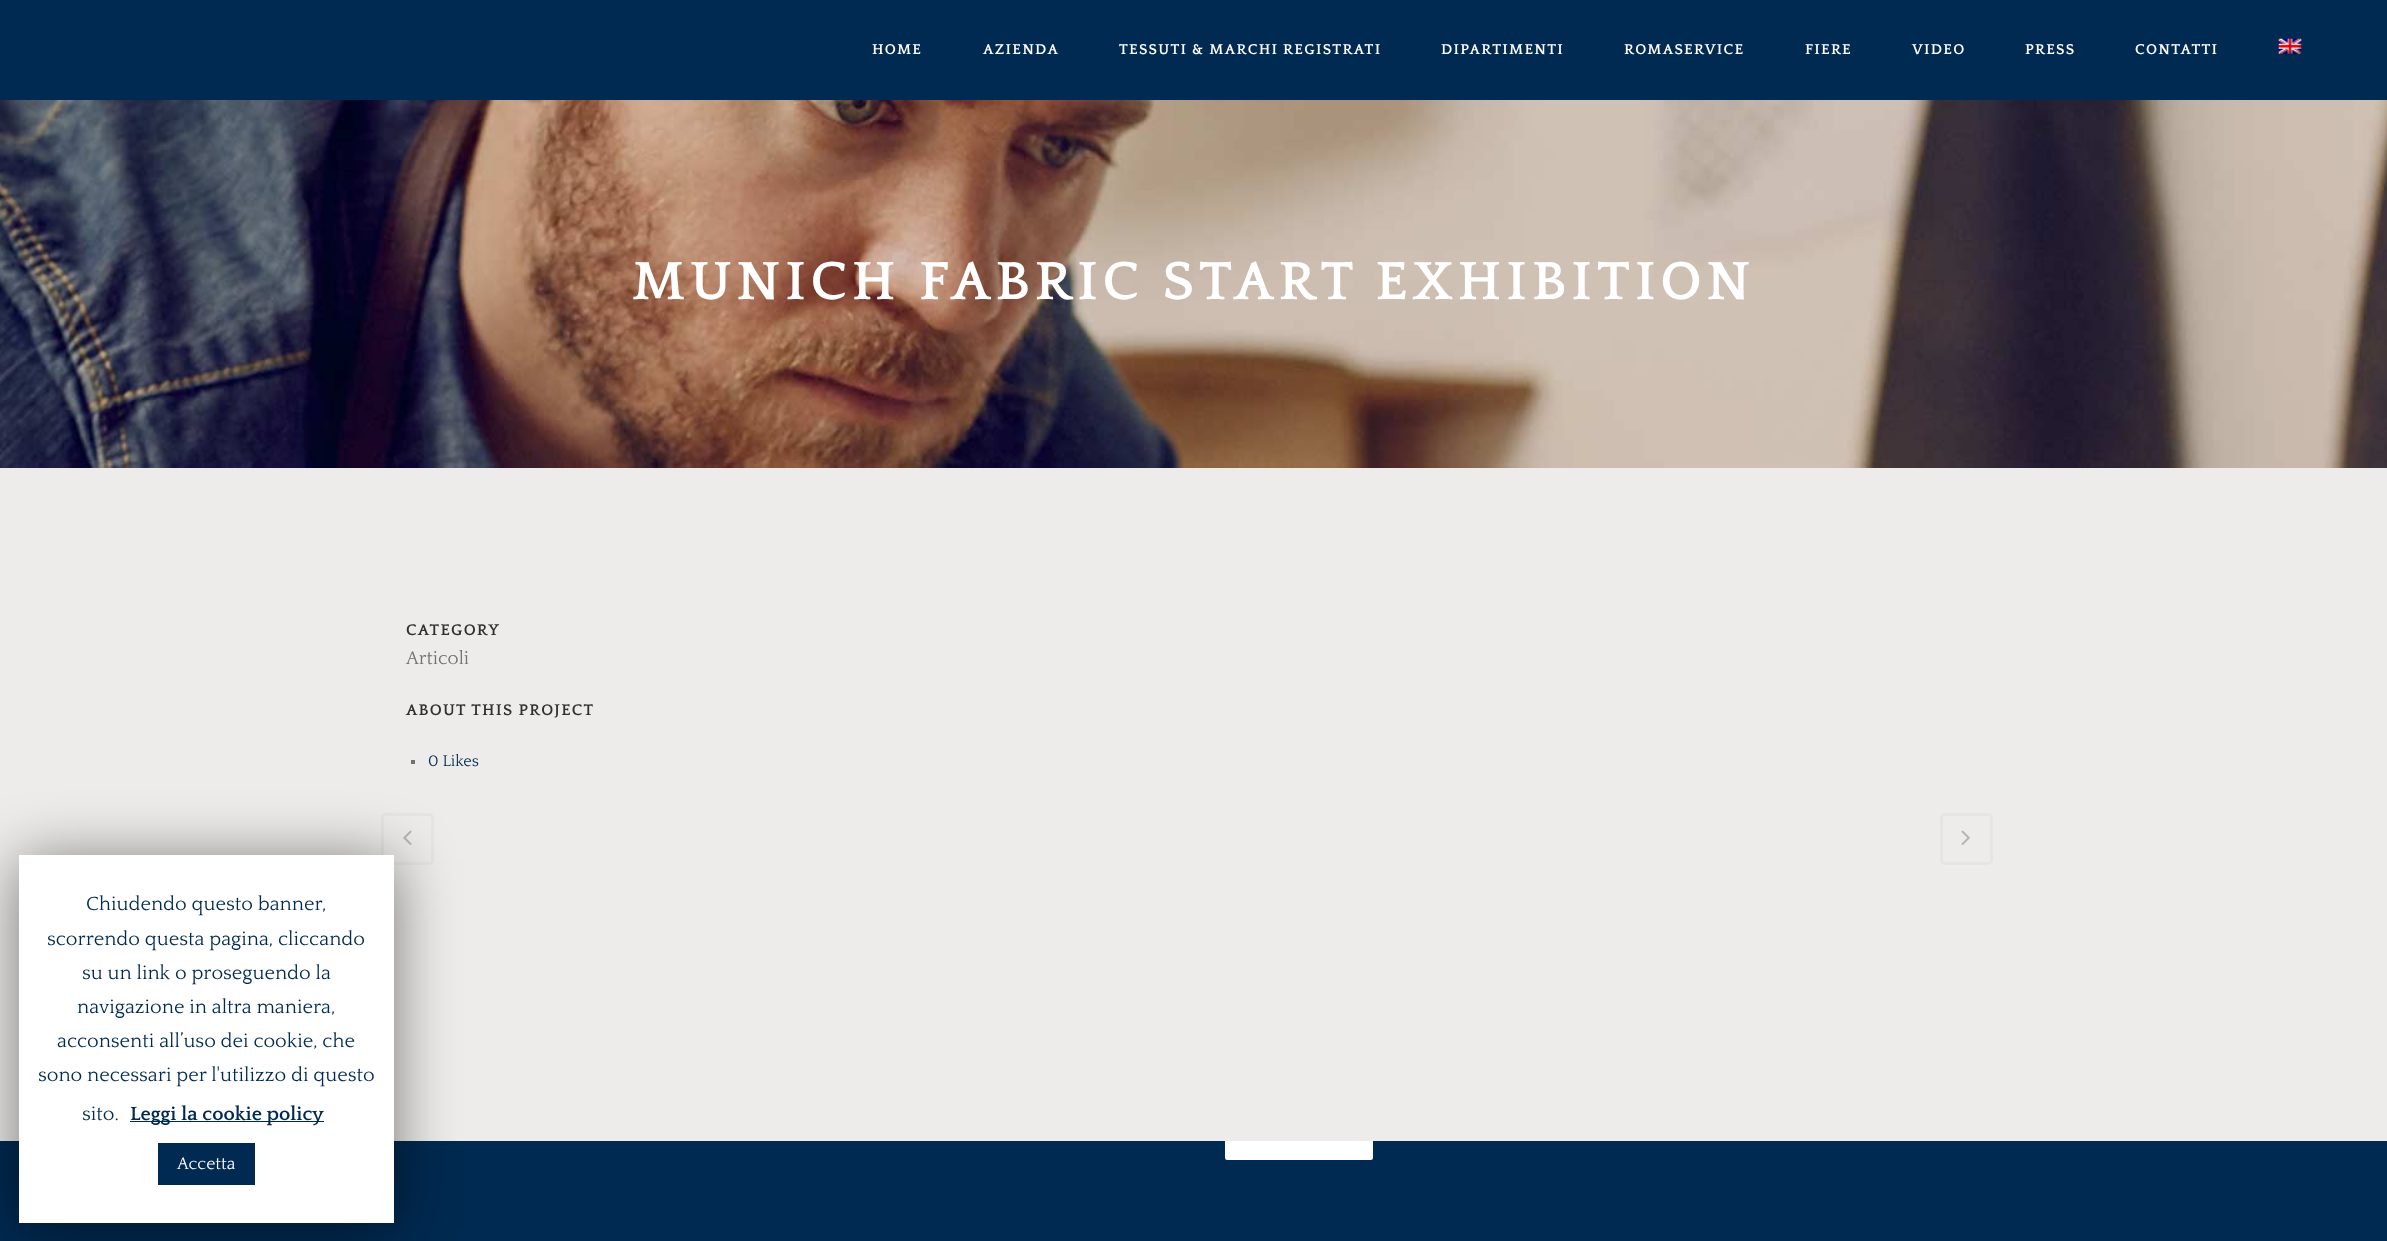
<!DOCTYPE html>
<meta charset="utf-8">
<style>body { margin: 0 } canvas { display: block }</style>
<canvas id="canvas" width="2387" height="1241"></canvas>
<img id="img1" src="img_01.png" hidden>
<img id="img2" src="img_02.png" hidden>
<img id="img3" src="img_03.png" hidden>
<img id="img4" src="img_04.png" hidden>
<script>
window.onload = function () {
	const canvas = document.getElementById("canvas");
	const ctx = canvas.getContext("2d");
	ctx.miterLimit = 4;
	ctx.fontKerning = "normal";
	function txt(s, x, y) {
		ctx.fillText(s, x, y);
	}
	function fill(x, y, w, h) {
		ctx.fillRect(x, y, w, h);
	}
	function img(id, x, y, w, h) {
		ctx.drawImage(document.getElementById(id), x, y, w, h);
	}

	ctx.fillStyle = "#002A51";
	fill(0, 0, 2387, 1241);
	img("img1", 2278, 38, 24, 16);
	ctx.fillStyle = "#FFFFFF";
	ctx.beginPath();
	ctx.roundRect(1226.5, 1081.5, 145, 77, 1);
	ctx.fill();
	ctx.strokeStyle = "#FFFFFF";
	ctx.lineWidth = 3;
	ctx.stroke();
	ctx.fillStyle = "#EDECEA";
	fill(0, 468, 2387, 673);
	img("img2", 0, 100, 2387, 368);
	ctx.fillStyle = "#707070";
	fill(411, 760, 4, 4);
	ctx.beginPath();
	ctx.roundRect(382.5, 814.5, 50, 49, 3.5);
	ctx.strokeStyle = "#E5E5E5";
	ctx.stroke();
	img("img3", 403, 830, 9, 15);
	ctx.beginPath();
	ctx.roundRect(1941.5, 814.5, 50, 49, 3.5);
	ctx.stroke();
	img("img4", 1961, 830, 9, 15);
	ctx.fillStyle = "rgba(0, 0, 0, 0.5)";
	ctx.filter = "blur(31px)";
	ctx.beginPath();
	ctx.rect(19, 861, 375, 368);
	ctx.fill();
	ctx.filter = "none";
	ctx.fillStyle = "#FFFFFF";
	fill(19, 855, 375, 368);
	ctx.fillStyle = "#002A51";
	fill(130, 1121, 194, 1);
	fill(158, 1143, 97, 42);
	ctx.letterSpacing = "1.25px";
	ctx.font = "bold 15px Quattrocento";
	ctx.fillStyle = "#FFFFFF";
	txt("HOME", 872, 54);
	txt("AZIENDA", 983, 54);
	txt("TESSUTI & MARCHI REGISTRATI", 1119, 54);
	txt("DIPARTIMENTI", 1441, 54);
	txt("ROMASERVICE", 1624, 54);
	txt("FIERE", 1805, 54);
	txt("VIDEO", 1912, 54);
	txt("PRESS", 2025, 54);
	txt("CONTATTI", 2135, 54);
	ctx.letterSpacing = "5px";
	ctx.font = "bold 56.25px Quattrocento";
	txt("MUNICH FABRIC START EXHIBITION", 632, 299);
	ctx.letterSpacing = "1.25px";
	ctx.font = "bold 16.25px Quattrocento";
	ctx.fillStyle = "#303030";
	txt("CATEGORY", 406, 635);
	ctx.letterSpacing = "0px";
	ctx.font = "19px Quattrocento";
	ctx.fillStyle = "#707070";
	txt("Articoli", 406, 664);
	ctx.letterSpacing = "1.25px";
	ctx.font = "bold 16.25px Quattrocento";
	ctx.fillStyle = "#303030";
	txt("ABOUT THIS PROJECT", 406, 715);
	ctx.letterSpacing = "0px";
	ctx.font = "16.25px Quattrocento";
	ctx.fillStyle = "#002A51";
	txt("0 Likes", 428, 766);
	ctx.font = "20px Quattrocento";
	txt("Chiudendo questo banner,", 86, 910);
	txt("scorrendo questa pagina, cliccando", 47, 945);
	txt("su un link o proseguendo la", 82, 979);
	txt("navigazione in altra maniera,", 77, 1013);
	txt("acconsenti all’uso dei cookie, che", 57, 1047);
	txt("sono necessari per l'utilizzo di questo", 38, 1081);
	txt("sito.", 82, 1120);
	ctx.font = "bold 20px Quattrocento";
	txt("Leggi la cookie policy", 130, 1120);
	ctx.font = "17.5px Quattrocento";
	ctx.fillStyle = "#FFFFFF";
	txt("Accetta", 177, 1169);
};
</script>
